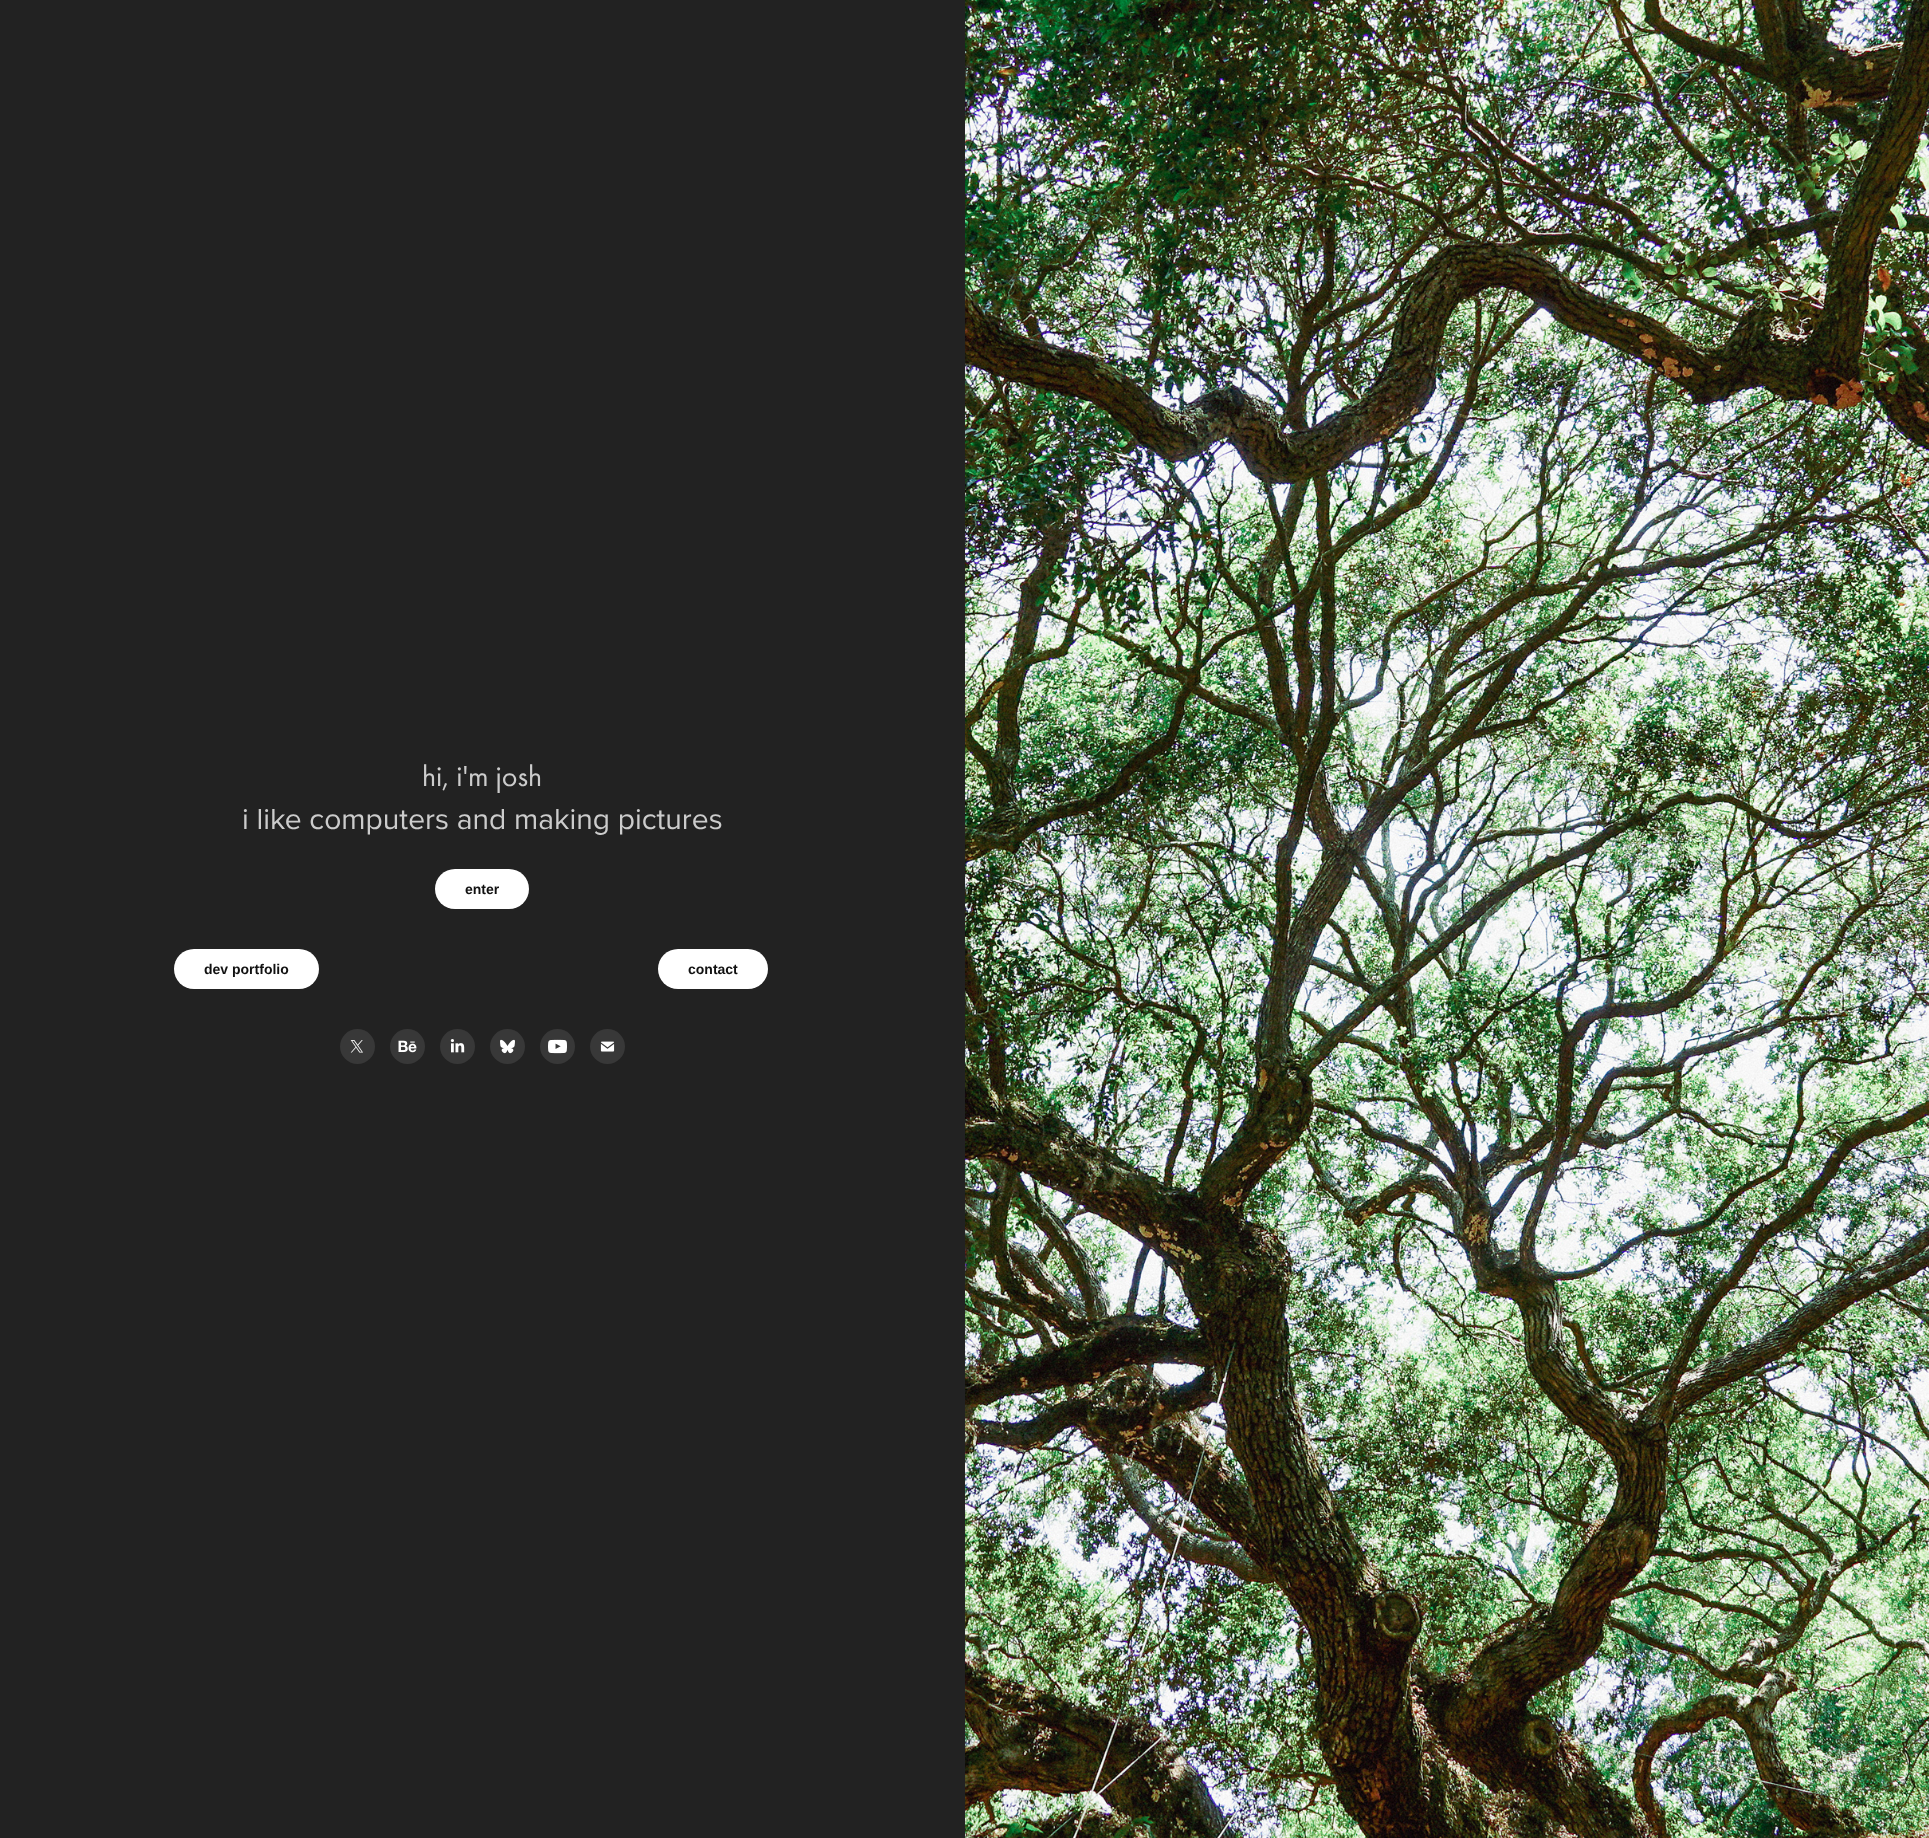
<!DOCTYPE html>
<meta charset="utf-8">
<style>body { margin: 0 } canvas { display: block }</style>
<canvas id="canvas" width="1929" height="1838"></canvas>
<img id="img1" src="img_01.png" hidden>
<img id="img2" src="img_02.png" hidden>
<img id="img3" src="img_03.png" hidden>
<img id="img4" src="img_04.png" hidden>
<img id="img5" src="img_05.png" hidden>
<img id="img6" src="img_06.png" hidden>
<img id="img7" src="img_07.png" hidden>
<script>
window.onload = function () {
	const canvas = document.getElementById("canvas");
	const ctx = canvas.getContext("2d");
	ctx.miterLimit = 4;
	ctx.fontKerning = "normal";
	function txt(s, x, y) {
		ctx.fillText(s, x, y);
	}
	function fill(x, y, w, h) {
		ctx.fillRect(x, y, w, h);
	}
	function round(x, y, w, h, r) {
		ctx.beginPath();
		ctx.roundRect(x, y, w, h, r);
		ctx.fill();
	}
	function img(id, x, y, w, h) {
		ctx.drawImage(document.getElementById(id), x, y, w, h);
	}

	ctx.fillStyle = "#222222";
	fill(0, 0, 1929, 1838);
	ctx.fillStyle = "#FFFFFF";
	round(435, 869, 94, 40, 20);
	round(174, 949, 145, 40, 20);
	round(658, 949, 110, 40, 20);
	ctx.fillStyle = "#383838";
	ctx.beginPath();
	ctx.arc(357.5, 1046.5, 17.5, 0, Math.PI * 2);
	ctx.fill();
	img("img1", 350, 1040, 13, 13);
	ctx.beginPath();
	ctx.arc(407.5, 1046.5, 17.5, 0, Math.PI * 2);
	ctx.fill();
	img("img2", 398, 1040, 19, 13);
	ctx.beginPath();
	ctx.arc(457.5, 1046.5, 17.5, 0, Math.PI * 2);
	ctx.fill();
	img("img3", 450, 1039, 15, 14);
	ctx.beginPath();
	ctx.arc(507.5, 1046.5, 17.5, 0, Math.PI * 2);
	ctx.fill();
	img("img4", 500, 1039, 15, 15);
	ctx.beginPath();
	ctx.arc(557.5, 1046.5, 17.5, 0, Math.PI * 2);
	ctx.fill();
	img("img5", 548, 1039, 19, 15);
	ctx.beginPath();
	ctx.arc(607.5, 1046.5, 17.5, 0, Math.PI * 2);
	ctx.fill();
	img("img6", 600, 1041, 15, 11);
	img("img7", 965, 0, 964, 1838);
	ctx.font = "30px Futura PT";
	ctx.fillStyle = "#CCCCCC";
	txt("hi, i'm josh", 422, 786);
	ctx.font = "30px Proxima Nova";
	txt("i like computers and making pictures", 242, 829);
	ctx.font = "bold 14px Liberation Sans";
	ctx.fillStyle = "#111111";
	txt("enter", 465, 894);
	txt("dev portfolio", 204, 974);
	txt("contact", 688, 974);
};
</script>
